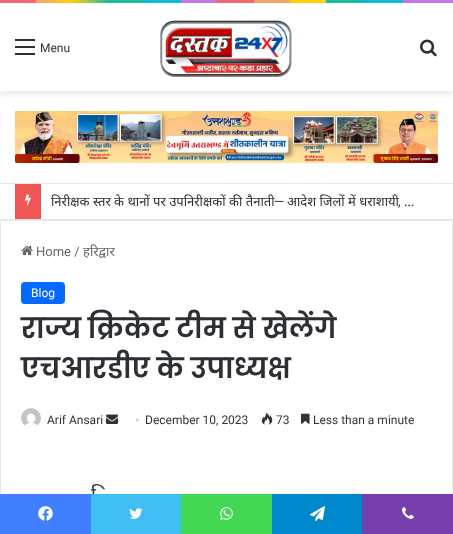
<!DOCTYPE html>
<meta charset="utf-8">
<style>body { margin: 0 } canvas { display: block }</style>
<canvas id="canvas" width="453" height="534"></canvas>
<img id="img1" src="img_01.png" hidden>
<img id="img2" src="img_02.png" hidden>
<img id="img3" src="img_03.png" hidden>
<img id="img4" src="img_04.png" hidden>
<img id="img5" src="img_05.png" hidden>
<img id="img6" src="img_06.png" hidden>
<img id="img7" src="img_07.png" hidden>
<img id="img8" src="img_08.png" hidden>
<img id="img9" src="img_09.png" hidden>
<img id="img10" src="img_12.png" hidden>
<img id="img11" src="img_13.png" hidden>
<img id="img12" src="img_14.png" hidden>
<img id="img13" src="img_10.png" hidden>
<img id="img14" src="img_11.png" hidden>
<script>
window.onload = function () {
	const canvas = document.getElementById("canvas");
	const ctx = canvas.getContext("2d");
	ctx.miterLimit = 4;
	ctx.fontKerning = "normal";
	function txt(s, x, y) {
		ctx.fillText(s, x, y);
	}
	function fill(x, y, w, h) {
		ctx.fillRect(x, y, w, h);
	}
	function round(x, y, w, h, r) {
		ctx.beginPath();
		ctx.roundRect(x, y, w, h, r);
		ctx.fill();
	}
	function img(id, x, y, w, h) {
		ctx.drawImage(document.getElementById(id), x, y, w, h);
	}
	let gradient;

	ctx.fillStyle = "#FFFFFF";
	fill(0, 0, 453, 534);
	gradient = ctx.createLinearGradient(0, 1.5, 453, 1.5);
	gradient.addColorStop(0, "#F76570");
	gradient.addColorStop(0.08, "#F76570");
	gradient.addColorStop(0.08, "#F3A46B");
	gradient.addColorStop(0.16, "#FFD205");
	gradient.addColorStop(0.24, "#1BBC9B");
	gradient.addColorStop(0.32, "#1BBC9B");
	gradient.addColorStop(0.32, "#14B9D5");
	gradient.addColorStop(0.4, "#14B9D5");
	gradient.addColorStop(0.4, "#C377E4");
	gradient.addColorStop(0.48, "#C377E4");
	gradient.addColorStop(0.48, "#F76570");
	gradient.addColorStop(0.56, "#F76570");
	gradient.addColorStop(0.56, "#F3A46B");
	gradient.addColorStop(0.64, "#F3A46B");
	gradient.addColorStop(0.64, "#FFD205");
	gradient.addColorStop(0.72, "#FFD205");
	gradient.addColorStop(0.72, "#1BBC9B");
	gradient.addColorStop(0.8, "#1BBC9B");
	gradient.addColorStop(0.8, "#14B9D5");
	gradient.addColorStop(0.89, "#14B9D5");
	gradient.addColorStop(0.89, "#C377E4");
	gradient.addColorStop(1, "#C377E4");
	ctx.fillStyle = gradient;
	fill(0, 0, 453, 3);
	ctx.save();
	ctx.beginPath();
	ctx.rect(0, 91, 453, 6);
	ctx.clip();
	ctx.fillStyle = "rgba(0, 0, 0, 0.1)";
	ctx.filter = "blur(3.5px)";
	ctx.beginPath();
	ctx.rect(0, 6, 453, 88);
	ctx.fill();
	ctx.filter = "none";
	ctx.restore();
	ctx.fillStyle = "#2C2F34";
	fill(15, 46, 20, 2);
	fill(15, 39, 20, 2);
	fill(15, 53, 20, 2);
	img("img1", 160, 20, 132, 57);
	img("img2", 420, 39, 17, 18);
	img("img3", 15, 111, 423, 52);
	ctx.fillStyle = "#E6E6E6";
	fill(0, 183, 453, 1);
	fill(0, 219, 453, 1);
	ctx.fillStyle = "#F05555";
	fill(15, 184, 26, 35);
	img("img4", 25, 194, 6, 12);
	ctx.beginPath();
	ctx.roundRect(0.5, 220.5, 452, 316, 1.5);
	ctx.strokeStyle = "#E6E6E6";
	ctx.stroke();
	img("img5", 21, 245, 12, 11);
	ctx.fillStyle = "#0669FF";
	round(21, 282, 44, 22, 4);
	img("img6", 21, 408, 20, 18);
	img("img7", 106, 414, 12, 10);
	img("img8", 261, 412, 12, 13);
	img("img9", 301, 413, 9, 11);
	ctx.fillStyle = "#43D854";
	fill(181, 494, 91, 40);
	img("img10", 220, 507, 13, 13);
	ctx.fillStyle = "#0088CC";
	fill(272, 494, 90, 40);
	img("img11", 310, 506, 15, 15);
	ctx.fillStyle = "#773EAD";
	fill(362, 494, 91, 40);
	img("img12", 402, 507, 12, 12);
	ctx.font = "12px Roboto";
	ctx.fillStyle = "#2C2F34";
	txt("Menu", 40, 52);
	ctx.font = "13px Noto Sans";
	txt("निरीक्षक स्तर के थानों पर उपनिरीक्षकों की तैनाती", 51, 206);
	ctx.font = "13px Roboto";
	txt("—", 274, 206);
	ctx.font = "13px Noto Sans";
	txt("आदेश जिलों में धराशायी", 287, 206);
	ctx.font = "13px Roboto";
	txt(",", 398, 206);
	ctx.font = "13px Noto Sans";
	txt("…", 404, 206);
	ctx.font = "13px Roboto";
	ctx.fillStyle = "#666666";
	txt("Home /", 36, 256);
	ctx.font = "13px Noto Sans";
	txt("हरिद्वार", 83, 256);
	ctx.font = "12px Roboto";
	ctx.fillStyle = "#FFFFFF";
	txt("Blog", 31, 297);
	ctx.font = "600 28px Poppins";
	ctx.fillStyle = "#2C2F34";
	txt("राज्य क्रिकेट टीम से खेलेंगे", 21, 338);
	txt("एचआरडीए के उपाध्यक्ष", 21, 378);
	ctx.font = "12px Roboto";
	ctx.fillStyle = "#333333";
	txt("Arif Ansari", 47, 424);
	ctx.font = "12px Liberation Serif";
	ctx.fillStyle = "#CCCCCC";
	txt("•", 135, 424);
	ctx.font = "12px Roboto";
	ctx.fillStyle = "#333333";
	txt("December 10, 2023", 145, 424);
	txt("73", 276, 424);
	txt("Less than a minute", 313, 424);
	ctx.font = "19px Noto Sans";
	ctx.fillStyle = "#2C2F34";
	txt("ि", 91, 501);
	ctx.fillStyle = "#4080FF";
	fill(0, 494, 91, 40);
	img("img13", 38, 506, 15, 15);
	ctx.fillStyle = "#40BFF5";
	fill(91, 494, 90, 40);
	img("img14", 129, 508, 14, 11);
};
</script>
